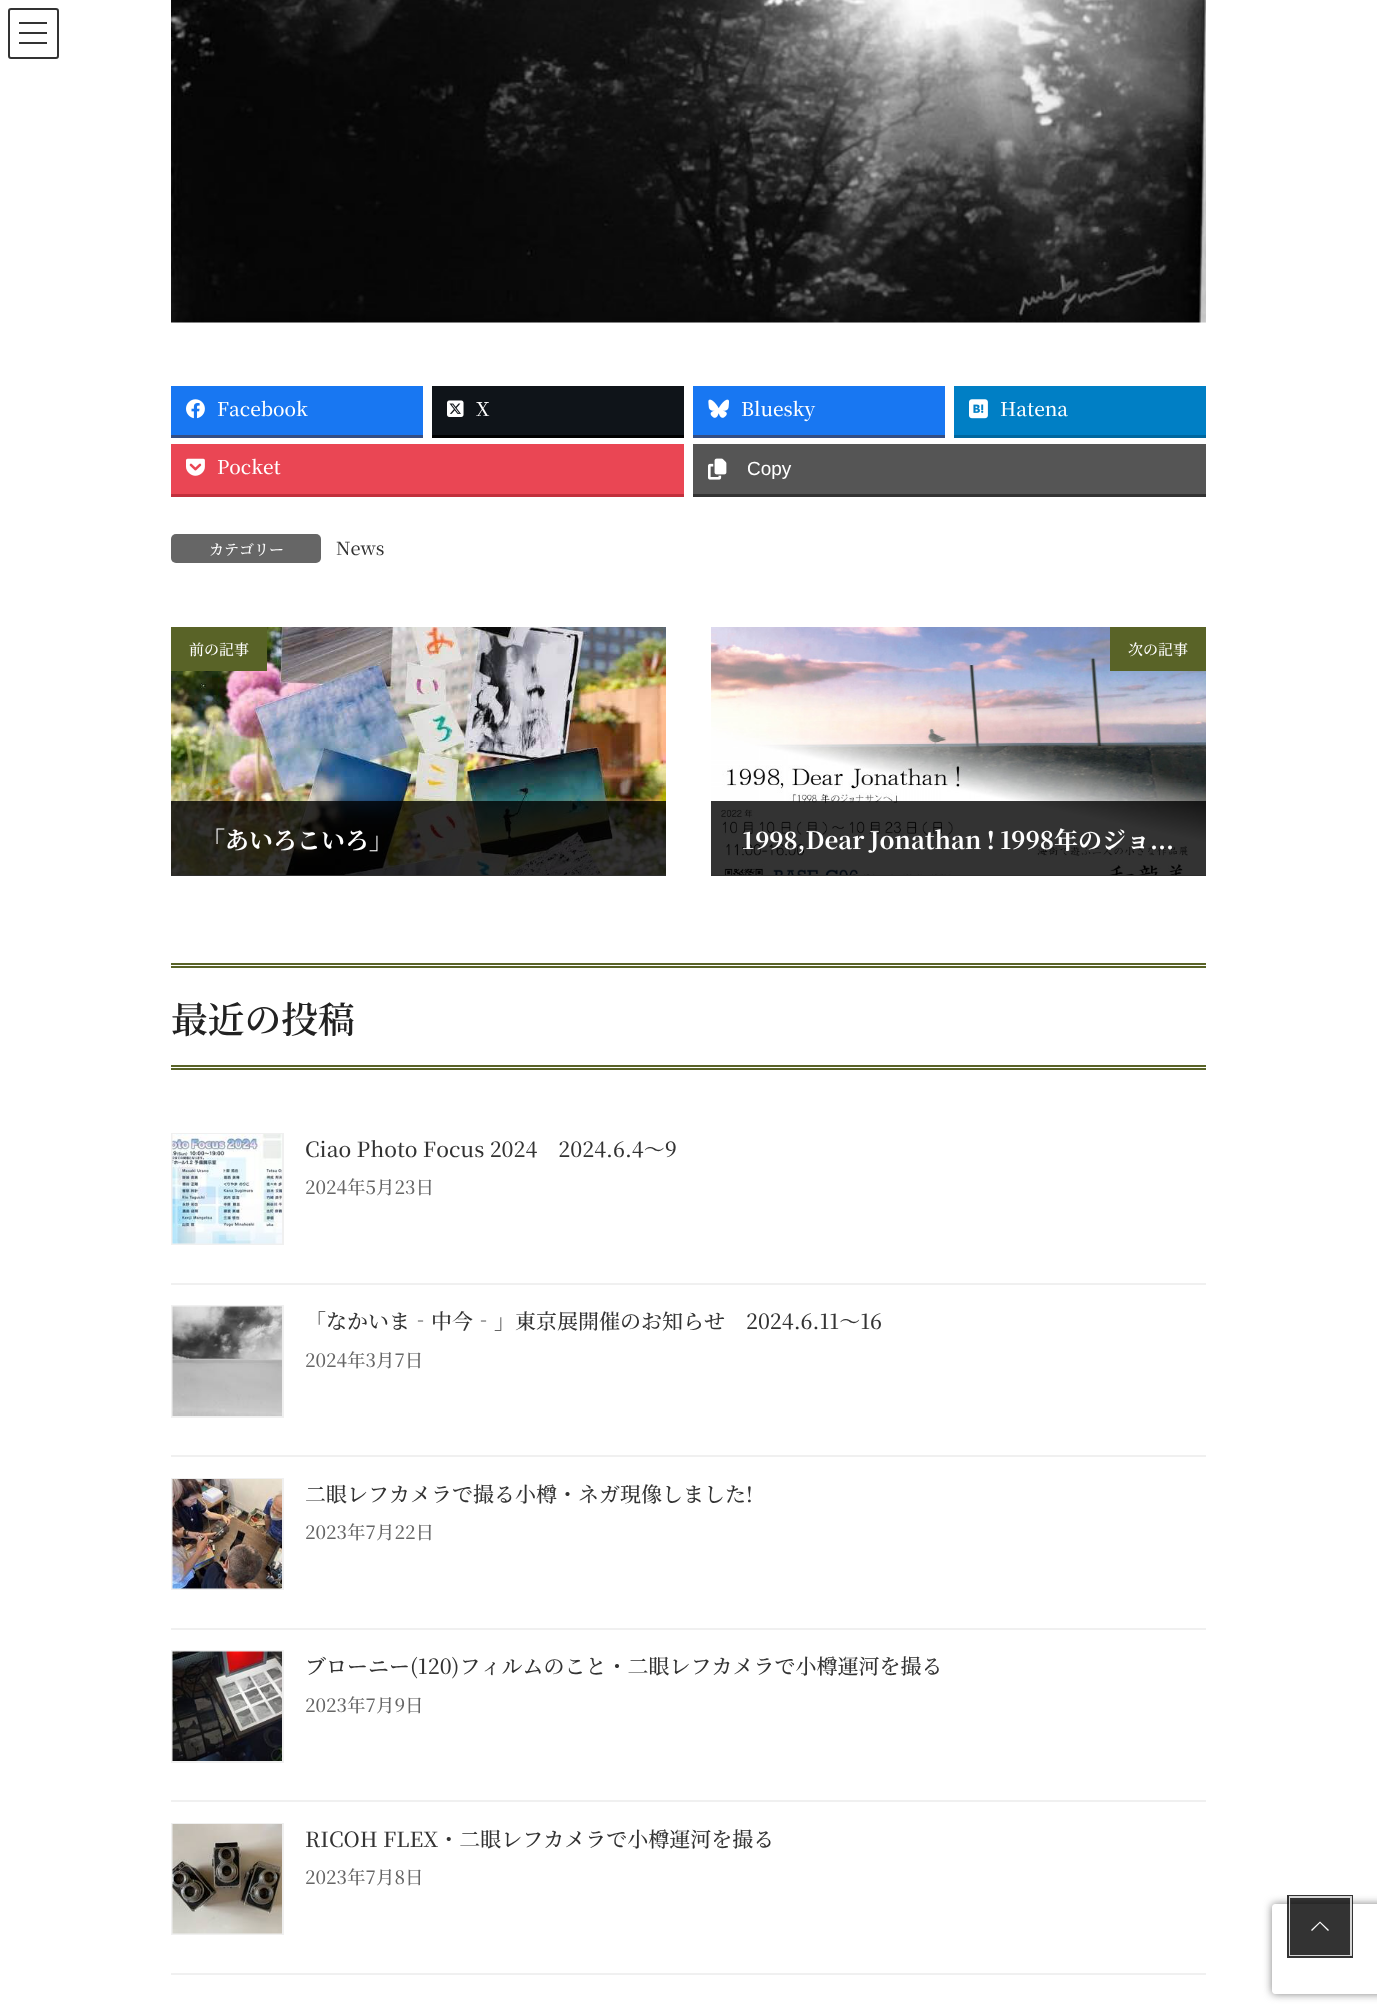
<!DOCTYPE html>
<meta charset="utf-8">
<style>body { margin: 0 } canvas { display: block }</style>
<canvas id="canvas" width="1377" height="2014"></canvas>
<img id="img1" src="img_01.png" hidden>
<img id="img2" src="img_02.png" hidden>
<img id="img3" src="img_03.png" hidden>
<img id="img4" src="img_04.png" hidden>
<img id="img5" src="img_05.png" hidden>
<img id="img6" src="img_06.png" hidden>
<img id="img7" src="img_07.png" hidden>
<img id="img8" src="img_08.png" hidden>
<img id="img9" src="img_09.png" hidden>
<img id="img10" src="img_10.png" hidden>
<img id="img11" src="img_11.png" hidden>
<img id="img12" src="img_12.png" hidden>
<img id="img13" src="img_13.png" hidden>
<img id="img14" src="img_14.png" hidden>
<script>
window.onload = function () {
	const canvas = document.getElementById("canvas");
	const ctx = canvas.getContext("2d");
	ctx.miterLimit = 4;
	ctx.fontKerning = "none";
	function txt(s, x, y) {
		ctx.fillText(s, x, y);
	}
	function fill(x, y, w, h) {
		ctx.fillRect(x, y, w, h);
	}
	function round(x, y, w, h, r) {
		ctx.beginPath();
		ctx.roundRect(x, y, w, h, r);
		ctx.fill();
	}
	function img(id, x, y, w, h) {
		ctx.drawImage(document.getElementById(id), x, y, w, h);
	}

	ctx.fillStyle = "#FFFFFF";
	fill(0, 0, 1377, 2014);
	ctx.fillStyle = "#333333";
	fill(19, 22, 28, 2);
	fill(19, 32, 28, 2);
	fill(19, 42, 28, 2);
	ctx.beginPath();
	ctx.roundRect(9, 9, 49, 49, 2);
	ctx.strokeStyle = "#333333";
	ctx.lineWidth = 2;
	ctx.stroke();
	img("img1", 171, 0, 1035, 323);
	ctx.fillStyle = "#344E84";
	fill(171, 435, 252, 3);
	ctx.fillStyle = "#1877F2";
	fill(171, 386, 252, 49);
	img("img2", 186, 399, 19, 20);
	ctx.fillStyle = "#000000";
	fill(432, 435, 252, 3);
	ctx.fillStyle = "#0F1419";
	fill(432, 386, 252, 49);
	img("img3", 447, 400, 17, 17);
	ctx.fillStyle = "#344E84";
	fill(693, 435, 252, 3);
	ctx.fillStyle = "#1877F2";
	fill(693, 386, 252, 49);
	img("img4", 708, 399, 21, 19);
	ctx.fillStyle = "#00679F";
	fill(954, 435, 252, 3);
	ctx.fillStyle = "#007FC5";
	fill(954, 386, 252, 49);
	img("img5", 969, 399, 19, 20);
	ctx.fillStyle = "#C1303C";
	fill(171, 494, 513, 3);
	ctx.fillStyle = "#EA4654";
	fill(171, 444, 513, 50);
	img("img6", 186, 458, 19, 18);
	ctx.fillStyle = "#333333";
	fill(693, 494, 513, 3);
	ctx.fillStyle = "#555555";
	fill(693, 444, 513, 50);
	img("img7", 708, 458, 19, 22);
	ctx.fillStyle = "#666666";
	round(171, 534, 150, 29, 5);
	img("img8", 171, 627, 495, 248);
	ctx.fillStyle = "#E5E5E5";
	fill(171, 875, 495, 1);
	ctx.fillStyle = "#596327";
	fill(171, 627, 96, 44);
	ctx.fillStyle = "rgba(0, 0, 0, 0.8)";
	fill(171, 801, 495, 75);
	img("img9", 711, 627, 495, 248);
	ctx.fillStyle = "#E5E5E5";
	fill(711, 875, 495, 1);
	ctx.fillStyle = "#596327";
	fill(1110, 627, 96, 44);
	ctx.fillStyle = "rgba(0, 0, 0, 0.8)";
	fill(711, 801, 495, 75);
	ctx.fillStyle = "#596327";
	fill(171, 963, 1035, 2);
	fill(171, 966, 1035, 2);
	fill(171, 1065, 1035, 2);
	fill(171, 1068, 1035, 2);
	ctx.fillStyle = "#F0F0F0";
	fill(171, 1283, 1035, 2);
	ctx.strokeStyle = "#F0F0F0";
	ctx.strokeRect(172, 1134, 111, 110);
	img("img10", 172, 1134, 110, 110);
	fill(171, 1455, 1035, 2);
	ctx.strokeRect(172, 1306, 111, 111);
	img("img11", 172, 1306, 110, 110);
	fill(171, 1628, 1035, 2);
	ctx.strokeRect(172, 1479, 111, 110);
	img("img12", 172, 1479, 110, 110);
	fill(171, 1800, 1035, 2);
	ctx.strokeRect(172, 1651, 111, 111);
	img("img13", 172, 1651, 110, 110);
	fill(171, 1973, 1035, 2);
	ctx.strokeRect(172, 1824, 111, 110);
	img("img14", 172, 1824, 110, 110);
	ctx.save();
	ctx.beginPath();
	ctx.moveTo(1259, 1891);
	ctx.lineTo(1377, 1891);
	ctx.lineTo(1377, 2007);
	ctx.lineTo(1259, 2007);
	ctx.closePath();
	ctx.moveTo(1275, 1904);
	ctx.lineTo(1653, 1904);
	ctx.bezierCurveTo(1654.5, 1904, 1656, 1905.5, 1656, 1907);
	ctx.lineTo(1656, 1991);
	ctx.bezierCurveTo(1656, 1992.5, 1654.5, 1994, 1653, 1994);
	ctx.lineTo(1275, 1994);
	ctx.bezierCurveTo(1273.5, 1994, 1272, 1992.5, 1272, 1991);
	ctx.lineTo(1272, 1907);
	ctx.bezierCurveTo(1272, 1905.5, 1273.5, 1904, 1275, 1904);
	ctx.closePath();
	ctx.clip("evenodd");
	ctx.fillStyle = "#808080";
	ctx.filter = "blur(4px)";
	ctx.beginPath();
	ctx.roundRect(1272, 1904, 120, 90, 3);
	ctx.fill();
	ctx.filter = "none";
	ctx.restore();
	ctx.strokeStyle = "rgba(0, 0, 0, 0.8)";
	ctx.lineWidth = 3;
	ctx.strokeRect(1288.5, 1896.5, 63, 60);
	ctx.strokeStyle = "rgba(255, 255, 255, 0.8)";
	ctx.lineWidth = 2;
	ctx.strokeRect(1290, 1897, 61, 58);
	ctx.fillStyle = "rgba(0, 0, 0, 0.8)";
	fill(1290, 1898, 60, 57);
	ctx.fillStyle = "#FFFFFF";
	ctx.beginPath();
	ctx.moveTo(1329, 1930);
	ctx.lineTo(1328, 1931);
	ctx.lineTo(1320, 1923);
	ctx.lineTo(1312, 1931);
	ctx.lineTo(1311, 1930);
	ctx.lineTo(1320, 1921.5);
	ctx.closePath();
	ctx.fill();
	ctx.font = "500 19px Noto Serif JP";
	txt("Facebook", 217, 416);
	txt("X", 476, 416);
	txt("Bluesky", 741, 416);
	txt("Hatena", 1000, 416);
	txt("Pocket", 217, 474);
	ctx.font = "19px Liberation Sans";
	txt("Copy", 747, 475);
	ctx.font = "500 15px Noto Serif JP";
	txt("カテゴリー", 209, 555);
	ctx.font = "500 18px Noto Serif JP";
	ctx.fillStyle = "#333333";
	txt("News", 336, 555);
	ctx.font = "500 15px Noto Serif JP";
	ctx.fillStyle = "#FFFFFF";
	txt("前の記事", 189, 655);
	ctx.font = "bold 24px Noto Serif JP";
	txt("「あいろこいろ」", 201, 849);
	ctx.font = "500 15px Noto Serif JP";
	txt("次の記事", 1128, 655);
	ctx.wordSpacing = "-1px";
	ctx.font = "bold 24px Noto Serif JP";
	txt("1998,Dear Jonathan ! 1998年のジョ...", 741, 849);
	ctx.wordSpacing = "0px";
	ctx.font = "600 36.75px Noto Serif JP";
	ctx.fillStyle = "#222222";
	txt("最近の投稿", 171, 1033);
	ctx.font = "500 21px Noto Serif JP";
	ctx.fillStyle = "#333333";
	txt("Ciao Photo Focus 2024　2024.6.4～9", 305, 1157);
	ctx.font = "500 18.5px Noto Serif JP";
	ctx.fillStyle = "#666666";
	txt("2024年5月23日", 305, 1194);
	ctx.font = "500 21px Noto Serif JP";
	ctx.fillStyle = "#333333";
	txt("「なかいま‐中今‐」東京展開催のお知らせ　2024.6.11～16", 305, 1329);
	ctx.font = "500 18.5px Noto Serif JP";
	ctx.fillStyle = "#666666";
	txt("2024年3月7日", 305, 1367);
	ctx.font = "500 21px Noto Serif JP";
	ctx.fillStyle = "#333333";
	txt("二眼レフカメラで撮る小樽・ネガ現像しました!", 305, 1502);
	ctx.font = "500 18.5px Noto Serif JP";
	ctx.fillStyle = "#666666";
	txt("2023年7月22日", 305, 1539);
	ctx.font = "500 21px Noto Serif JP";
	ctx.fillStyle = "#333333";
	txt("ブローニー(120)フィルムのこと・二眼レフカメラで小樽運河を撮る", 305, 1674);
	ctx.font = "500 18.5px Noto Serif JP";
	ctx.fillStyle = "#666666";
	txt("2023年7月9日", 305, 1712);
	ctx.font = "500 21px Noto Serif JP";
	ctx.fillStyle = "#333333";
	txt("RICOH FLEX・二眼レフカメラで小樽運河を撮る", 305, 1847);
	ctx.font = "500 18.5px Noto Serif JP";
	ctx.fillStyle = "#666666";
	txt("2023年7月8日", 305, 1884);
};
</script>
